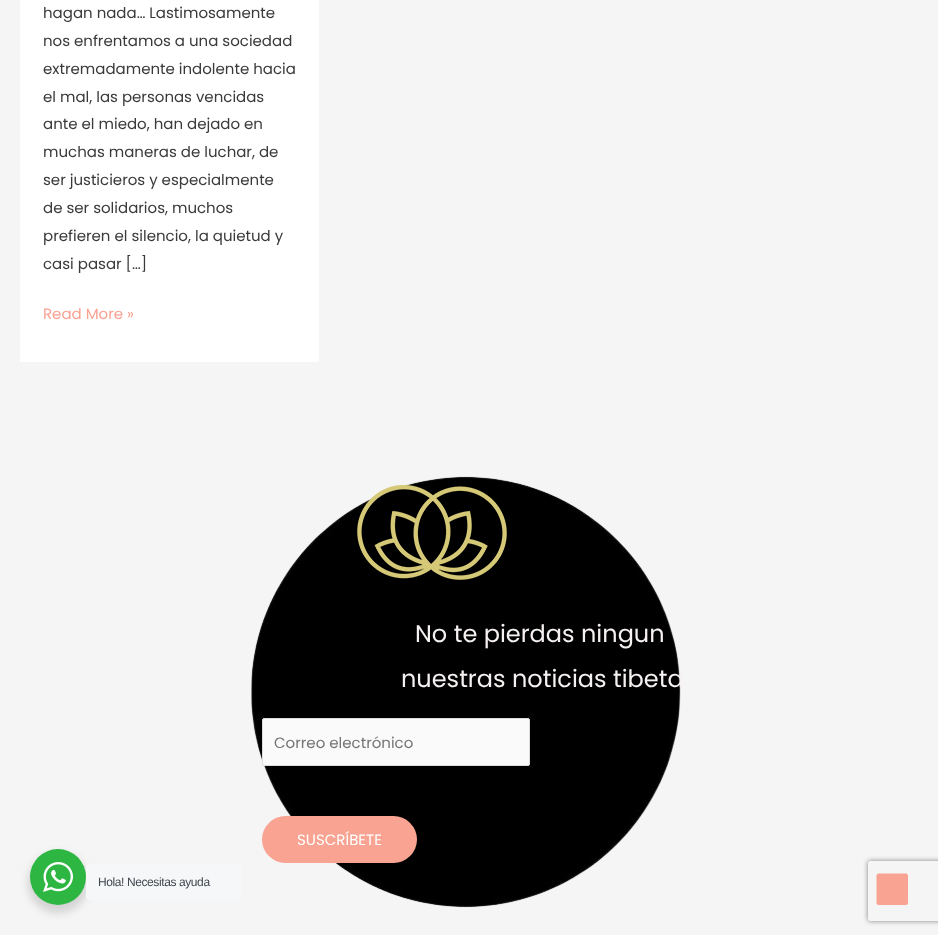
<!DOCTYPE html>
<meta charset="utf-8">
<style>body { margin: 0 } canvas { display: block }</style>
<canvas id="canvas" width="938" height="935"></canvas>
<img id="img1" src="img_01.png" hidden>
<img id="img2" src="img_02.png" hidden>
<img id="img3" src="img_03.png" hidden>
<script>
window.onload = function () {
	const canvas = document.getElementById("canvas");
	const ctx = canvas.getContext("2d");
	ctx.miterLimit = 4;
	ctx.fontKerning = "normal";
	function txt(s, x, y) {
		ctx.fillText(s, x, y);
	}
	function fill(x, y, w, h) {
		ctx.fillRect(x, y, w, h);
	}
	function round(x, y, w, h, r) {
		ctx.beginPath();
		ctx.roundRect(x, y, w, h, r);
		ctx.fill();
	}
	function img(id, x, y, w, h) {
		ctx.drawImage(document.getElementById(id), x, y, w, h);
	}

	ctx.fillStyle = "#F5F5F5";
	fill(0, 0, 938, 935);
	ctx.fillStyle = "#FFFFFF";
	fill(20, 0, 299, 362);
	img("img1", 251, 476, 430, 432);
	img("img2", 357, 485, 150, 95);
	ctx.fillStyle = "#FAFAFA";
	ctx.beginPath();
	ctx.roundRect(262.5, 718.5, 267, 47, 1.5);
	ctx.fill();
	ctx.strokeStyle = "#DDDDDD";
	ctx.stroke();
	ctx.fillStyle = "#F9A392";
	round(262, 816, 155, 47, 23.5);
	ctx.save();
	ctx.beginPath();
	ctx.moveTo(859, 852);
	ctx.lineTo(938, 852);
	ctx.lineTo(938, 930);
	ctx.lineTo(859, 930);
	ctx.closePath();
	ctx.moveTo(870, 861);
	ctx.lineTo(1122, 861);
	ctx.bezierCurveTo(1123, 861, 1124, 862, 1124, 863);
	ctx.lineTo(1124, 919);
	ctx.bezierCurveTo(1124, 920, 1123, 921, 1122, 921);
	ctx.lineTo(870, 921);
	ctx.bezierCurveTo(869, 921, 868, 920, 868, 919);
	ctx.lineTo(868, 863);
	ctx.bezierCurveTo(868, 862, 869, 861, 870, 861);
	ctx.closePath();
	ctx.clip("evenodd");
	ctx.fillStyle = "#808080";
	ctx.filter = "blur(2.5px)";
	ctx.beginPath();
	ctx.roundRect(868, 861, 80, 60, 2);
	ctx.fill();
	ctx.filter = "none";
	ctx.restore();
	ctx.fillStyle = "rgba(0, 0, 0, 0.14)";
	ctx.filter = "blur(4px)";
	ctx.beginPath();
	ctx.roundRect(28, 853, 60, 60, 30);
	ctx.fill();
	ctx.filter = "none";
	ctx.fillStyle = "#2DB742";
	ctx.beginPath();
	ctx.arc(58, 877, 28, 0, Math.PI * 2);
	ctx.fill();
	img("img3", 43, 862, 30, 30);
	ctx.fillStyle = "#F5F7F9";
	round(86, 864, 156, 36, 4);
	ctx.fillStyle = "#F9A392";
	ctx.beginPath();
	ctx.moveTo(906, 905);
	ctx.lineTo(878.5, 905);
	ctx.bezierCurveTo(877.5, 905, 876.5, 904, 876.5, 903);
	ctx.lineTo(876.5, 875.5);
	ctx.bezierCurveTo(876.5, 874.5, 877.5, 873.5, 878.5, 873.5);
	ctx.lineTo(906, 873.5);
	ctx.bezierCurveTo(907, 873.5, 908, 874.5, 908, 875.5);
	ctx.lineTo(908, 903);
	ctx.bezierCurveTo(908, 904, 907, 905, 906, 905);
	ctx.closePath();
	ctx.fill();
	ctx.font = "15px Poppins";
	ctx.fillStyle = "#3A3A3A";
	txt("hagan nada… Lastimosamente", 43, 18);
	txt("nos enfrentamos a una sociedad", 43, 46);
	txt("extremadamente indolente hacia", 43, 74);
	txt("el mal, las personas vencidas", 43, 102);
	txt("ante el miedo, han dejado en", 43, 129);
	txt("muchas maneras de luchar, de", 43, 157);
	txt("ser justicieros y especialmente", 43, 185);
	txt("de ser solidarios, muchos", 43, 213);
	txt("prefieren el silencio, la quietud y", 43, 241);
	txt("casi pasar […]", 43, 269);
	ctx.fillStyle = "#F9A392";
	txt("Read More »", 43, 319);
	ctx.font = "24px Poppins";
	ctx.fillStyle = "#F6F1F1";
	txt("No te pierdas ningun", 415, 642);
	txt("nuestras noticias tibeta", 401, 687);
	ctx.font = "15px Poppins";
	ctx.fillStyle = "#757575";
	txt("Correo electrónico", 274, 748);
	ctx.fillStyle = "#FFFFFF";
	txt("SUSCRÍBETE", 297, 845);
	ctx.letterSpacing = "-0.4px";
	ctx.font = "12px Liberation Sans";
	ctx.fillStyle = "#43474E";
	txt("Hola! Necesitas ayuda", 98, 886);
};
</script>
